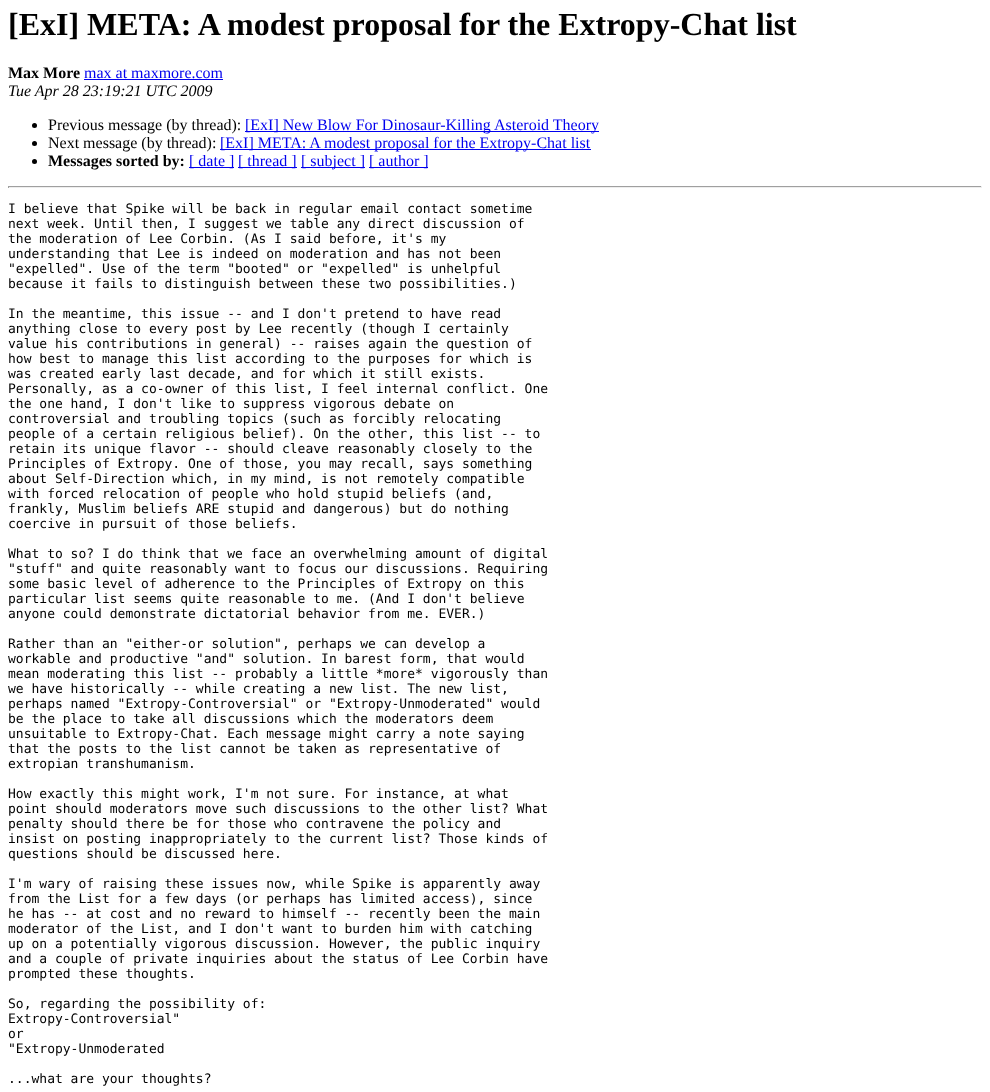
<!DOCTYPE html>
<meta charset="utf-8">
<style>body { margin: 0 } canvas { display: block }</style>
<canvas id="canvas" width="990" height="1092"></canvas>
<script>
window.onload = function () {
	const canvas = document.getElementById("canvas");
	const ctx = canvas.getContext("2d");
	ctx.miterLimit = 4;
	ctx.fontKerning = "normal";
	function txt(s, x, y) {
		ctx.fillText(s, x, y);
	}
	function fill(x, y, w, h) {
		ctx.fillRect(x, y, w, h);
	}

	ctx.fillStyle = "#FFFFFF";
	fill(0, 0, 990, 1092);
	ctx.fillStyle = "#0000EE";
	fill(84, 79, 139, 1);
	ctx.fillStyle = "#000000";
	ctx.beginPath();
	ctx.arc(34.5, 125.5, 2.5, 0, Math.PI * 2);
	ctx.fill();
	ctx.fillStyle = "#0000EE";
	fill(245, 131, 354, 1);
	ctx.fillStyle = "#000000";
	ctx.beginPath();
	ctx.arc(34.5, 143.5, 2.5, 0, Math.PI * 2);
	ctx.fill();
	ctx.fillStyle = "#0000EE";
	fill(220, 149, 371, 1);
	ctx.fillStyle = "#000000";
	ctx.beginPath();
	ctx.arc(34.5, 161.5, 2.5, 0, Math.PI * 2);
	ctx.fill();
	ctx.fillStyle = "#0000EE";
	fill(189, 167, 45, 1);
	fill(238, 167, 59, 1);
	fill(301, 167, 64, 1);
	fill(369, 167, 59, 1);
	ctx.fillStyle = "#9F9F9F";
	fill(8, 186, 974, 1);
	ctx.fillStyle = "#EEEEEE";
	fill(981, 186, 1, 2);
	fill(8, 187, 974, 1);
	ctx.fillStyle = "#9F9F9F";
	fill(8, 186, 1, 2);
	ctx.font = "bold 32px Liberation Serif";
	ctx.fillStyle = "#000000";
	txt("[ExI] META: A modest proposal for the Extropy-Chat list", 8, 35);
	ctx.font = "bold 16px Liberation Serif";
	txt("Max More", 8, 78);
	ctx.font = "16px Liberation Serif";
	ctx.fillStyle = "#0000EE";
	txt("max at maxmore.com", 84, 78);
	ctx.font = "italic 16px Liberation Serif";
	ctx.fillStyle = "#000000";
	txt("Tue Apr 28 23:19:21 UTC 2009", 8, 96);
	ctx.font = "16px Liberation Serif";
	txt("Previous message (by thread):", 48, 130);
	ctx.fillStyle = "#0000EE";
	txt("[ExI] New Blow For Dinosaur-Killing Asteroid Theory", 245, 130);
	ctx.fillStyle = "#000000";
	txt("Next message (by thread):", 48, 148);
	ctx.fillStyle = "#0000EE";
	txt("[ExI] META: A modest proposal for the Extropy-Chat list", 220, 148);
	ctx.font = "bold 16px Liberation Serif";
	ctx.fillStyle = "#000000";
	txt("Messages sorted by:", 48, 166);
	ctx.font = "16px Liberation Serif";
	ctx.fillStyle = "#0000EE";
	txt("[ date ]", 189, 166);
	txt("[ thread ]", 238, 166);
	txt("[ subject ]", 301, 166);
	txt("[ author ]", 369, 166);
	ctx.font = "13px DejaVu Sans Mono";
	ctx.fillStyle = "#000000";
	txt("I believe that Spike will be back in regular email contact sometime", 8, 213);
	txt("next week. Until then, I suggest we table any direct discussion of", 8, 228);
	txt("the moderation of Lee Corbin. (As I said before, it's my", 8, 243);
	txt("understanding that Lee is indeed on moderation and has not been", 8, 258);
	txt("\"expelled\". Use of the term \"booted\" or \"expelled\" is unhelpful", 8, 273);
	txt("because it fails to distinguish between these two possibilities.)", 8, 288);
	txt("In the meantime, this issue -- and I don't pretend to have read", 8, 318);
	txt("anything close to every post by Lee recently (though I certainly", 8, 333);
	txt("value his contributions in general) -- raises again the question of", 8, 348);
	txt("how best to manage this list according to the purposes for which is", 8, 363);
	txt("was created early last decade, and for which it still exists.", 8, 378);
	txt("Personally, as a co-owner of this list, I feel internal conflict. One", 8, 393);
	txt("the one hand, I don't like to suppress vigorous debate on", 8, 408);
	txt("controversial and troubling topics (such as forcibly relocating", 8, 423);
	txt("people of a certain religious belief). On the other, this list -- to", 8, 438);
	txt("retain its unique flavor -- should cleave reasonably closely to the", 8, 453);
	txt("Principles of Extropy. One of those, you may recall, says something", 8, 468);
	txt("about Self-Direction which, in my mind, is not remotely compatible", 8, 483);
	txt("with forced relocation of people who hold stupid beliefs (and,", 8, 498);
	txt("frankly, Muslim beliefs ARE stupid and dangerous) but do nothing", 8, 513);
	txt("coercive in pursuit of those beliefs.", 8, 528);
	txt("What to so? I do think that we face an overwhelming amount of digital", 8, 558);
	txt("\"stuff\" and quite reasonably want to focus our discussions. Requiring", 8, 573);
	txt("some basic level of adherence to the Principles of Extropy on this", 8, 588);
	txt("particular list seems quite reasonable to me. (And I don't believe", 8, 603);
	txt("anyone could demonstrate dictatorial behavior from me. EVER.)", 8, 618);
	txt("Rather than an \"either-or solution\", perhaps we can develop a", 8, 648);
	txt("workable and productive \"and\" solution. In barest form, that would", 8, 663);
	txt("mean moderating this list -- probably a little *more* vigorously than", 8, 678);
	txt("we have historically -- while creating a new list. The new list,", 8, 693);
	txt("perhaps named \"Extropy-Controversial\" or \"Extropy-Unmoderated\" would", 8, 708);
	txt("be the place to take all discussions which the moderators deem", 8, 723);
	txt("unsuitable to Extropy-Chat. Each message might carry a note saying", 8, 738);
	txt("that the posts to the list cannot be taken as representative of", 8, 753);
	txt("extropian transhumanism.", 8, 768);
	txt("How exactly this might work, I'm not sure. For instance, at what", 8, 798);
	txt("point should moderators move such discussions to the other list? What", 8, 813);
	txt("penalty should there be for those who contravene the policy and", 8, 828);
	txt("insist on posting inappropriately to the current list? Those kinds of", 8, 843);
	txt("questions should be discussed here.", 8, 858);
	txt("I'm wary of raising these issues now, while Spike is apparently away", 8, 888);
	txt("from the List for a few days (or perhaps has limited access), since", 8, 903);
	txt("he has -- at cost and no reward to himself -- recently been the main", 8, 918);
	txt("moderator of the List, and I don't want to burden him with catching", 8, 933);
	txt("up on a potentially vigorous discussion. However, the public inquiry", 8, 948);
	txt("and a couple of private inquiries about the status of Lee Corbin have", 8, 963);
	txt("prompted these thoughts.", 8, 978);
	txt("So, regarding the possibility of:", 8, 1008);
	txt("Extropy-Controversial\"", 8, 1023);
	txt("or", 8, 1038);
	txt("\"Extropy-Unmoderated", 8, 1053);
	txt("...what are your thoughts?", 8, 1083);
};
</script>
